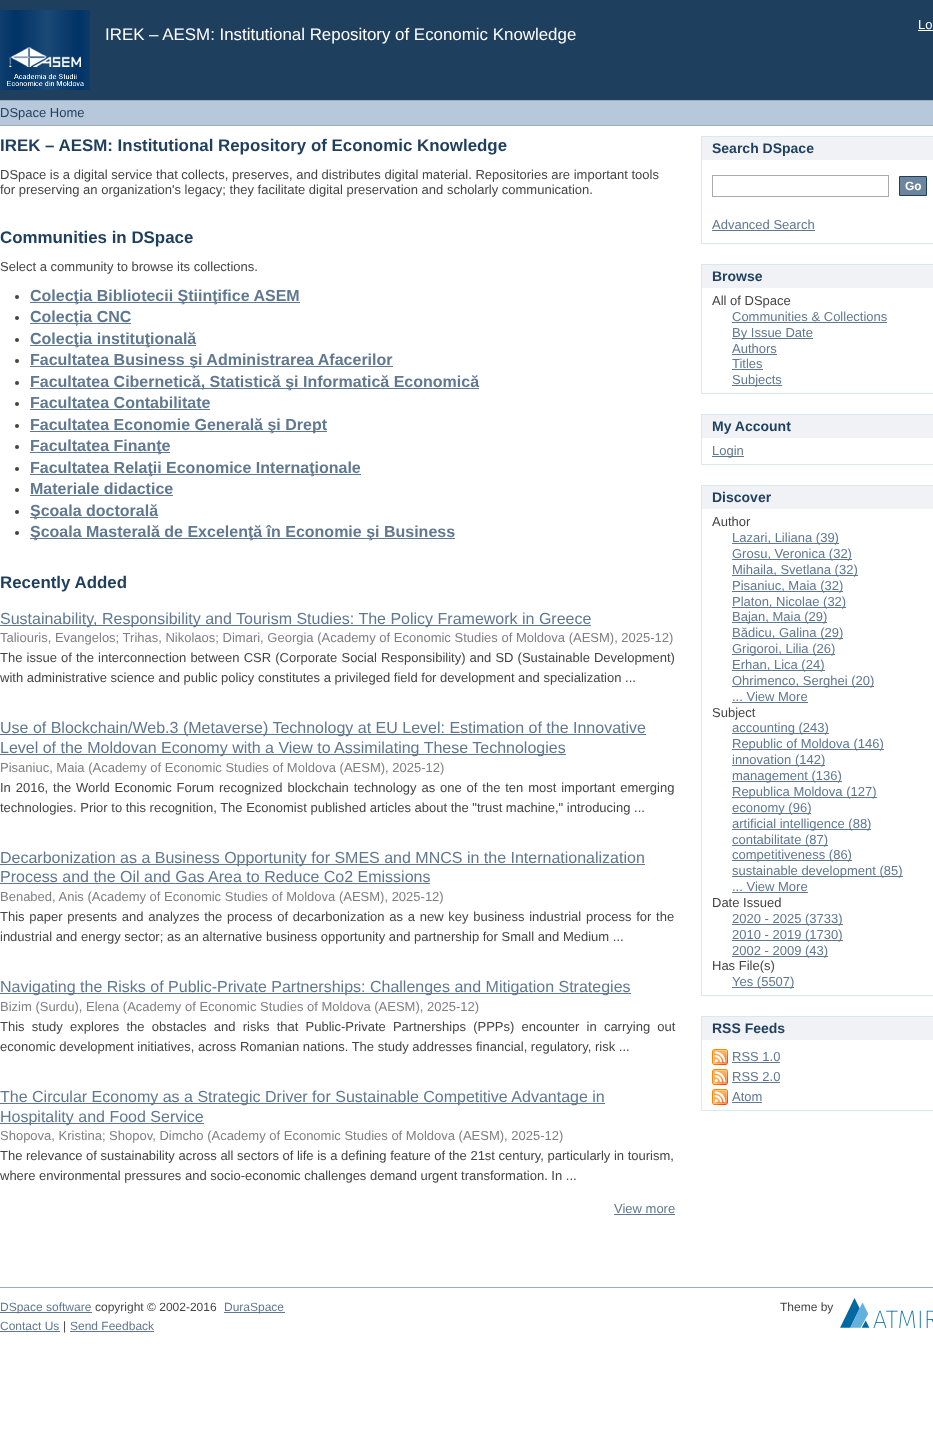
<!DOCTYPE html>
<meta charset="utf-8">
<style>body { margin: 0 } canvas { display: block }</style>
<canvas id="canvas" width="933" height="1436"></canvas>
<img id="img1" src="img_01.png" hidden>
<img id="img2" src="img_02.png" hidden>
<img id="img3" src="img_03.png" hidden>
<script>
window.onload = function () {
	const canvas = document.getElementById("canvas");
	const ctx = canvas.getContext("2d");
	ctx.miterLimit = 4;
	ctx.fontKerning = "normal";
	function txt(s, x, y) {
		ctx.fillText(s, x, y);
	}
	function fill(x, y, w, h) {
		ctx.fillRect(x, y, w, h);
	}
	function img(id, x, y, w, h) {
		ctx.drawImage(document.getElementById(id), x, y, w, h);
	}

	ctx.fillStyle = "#FFFFFF";
	fill(0, 0, 933, 1436);
	ctx.fillStyle = "#1F3F5E";
	fill(0, 0, 933, 100);
	ctx.fillStyle = "#FFFFFF";
	fill(918, 30, 15, 1);
	img("img1", 0, 10, 90, 80);
	ctx.fillStyle = "#B6C8D9";
	fill(0, 101, 933, 24);
	ctx.fillStyle = "#9CACBA";
	fill(0, 100, 933, 1);
	fill(0, 125, 933, 1);
	ctx.fillStyle = "#444444";
	ctx.beginPath();
	ctx.arc(17, 297, 2, 0, Math.PI * 2);
	ctx.fill();
	ctx.fillStyle = "#607890";
	fill(30, 302, 270, 1);
	ctx.fillStyle = "#444444";
	ctx.beginPath();
	ctx.arc(17, 318, 2, 0, Math.PI * 2);
	ctx.fill();
	ctx.fillStyle = "#607890";
	fill(30, 323, 101, 1);
	ctx.fillStyle = "#444444";
	ctx.beginPath();
	ctx.arc(17, 340, 2, 0, Math.PI * 2);
	ctx.fill();
	ctx.fillStyle = "#607890";
	fill(30, 345, 166, 1);
	ctx.fillStyle = "#444444";
	ctx.beginPath();
	ctx.arc(17, 361, 2, 0, Math.PI * 2);
	ctx.fill();
	ctx.fillStyle = "#607890";
	fill(30, 366, 363, 1);
	ctx.fillStyle = "#444444";
	ctx.beginPath();
	ctx.arc(17, 383, 2, 0, Math.PI * 2);
	ctx.fill();
	ctx.fillStyle = "#607890";
	fill(30, 388, 449, 1);
	ctx.fillStyle = "#444444";
	ctx.beginPath();
	ctx.arc(17, 404, 2, 0, Math.PI * 2);
	ctx.fill();
	ctx.fillStyle = "#607890";
	fill(30, 409, 180, 1);
	ctx.fillStyle = "#444444";
	ctx.beginPath();
	ctx.arc(17, 426, 2, 0, Math.PI * 2);
	ctx.fill();
	ctx.fillStyle = "#607890";
	fill(30, 431, 297, 1);
	ctx.fillStyle = "#444444";
	ctx.beginPath();
	ctx.arc(17, 447, 2, 0, Math.PI * 2);
	ctx.fill();
	ctx.fillStyle = "#607890";
	fill(30, 452, 140, 1);
	ctx.fillStyle = "#444444";
	ctx.beginPath();
	ctx.arc(17, 469, 2, 0, Math.PI * 2);
	ctx.fill();
	ctx.fillStyle = "#607890";
	fill(30, 474, 331, 1);
	ctx.fillStyle = "#444444";
	ctx.beginPath();
	ctx.arc(17, 490, 2, 0, Math.PI * 2);
	ctx.fill();
	ctx.fillStyle = "#607890";
	fill(30, 495, 143, 1);
	ctx.fillStyle = "#444444";
	ctx.beginPath();
	ctx.arc(17, 512, 2, 0, Math.PI * 2);
	ctx.fill();
	ctx.fillStyle = "#607890";
	fill(30, 517, 128, 1);
	ctx.fillStyle = "#444444";
	ctx.beginPath();
	ctx.arc(17, 533, 2, 0, Math.PI * 2);
	ctx.fill();
	ctx.fillStyle = "#607890";
	fill(30, 538, 425, 1);
	fill(0, 625, 591, 1);
	fill(0, 734, 646, 1);
	fill(0, 754, 566, 1);
	fill(0, 864, 645, 1);
	fill(0, 883, 430, 1);
	fill(0, 993, 631, 1);
	fill(0, 1103, 605, 1);
	fill(0, 1123, 204, 1);
	fill(614, 1214, 61, 1);
	ctx.fillStyle = "#F0F2F5";
	fill(702, 137, 231, 23);
	ctx.fillStyle = "#D8E8EB";
	fill(701, 136, 232, 1);
	fill(701, 136, 1, 24);
	fill(701, 243, 232, 1);
	fill(701, 160, 1, 84);
	ctx.strokeStyle = "#AAAAAA";
	ctx.strokeRect(712.5, 175.5, 176, 21);
	ctx.fillStyle = "#6D859C";
	ctx.beginPath();
	ctx.rect(899.5, 176.5, 27, 19);
	ctx.fill();
	ctx.strokeStyle = "#1F3F5E";
	ctx.stroke();
	ctx.fillStyle = "#607890";
	fill(712, 230, 103, 1);
	ctx.fillStyle = "#F0F2F5";
	fill(702, 265, 231, 23);
	ctx.fillStyle = "#D8E8EB";
	fill(701, 264, 232, 1);
	fill(701, 264, 1, 24);
	fill(701, 393, 232, 1);
	fill(701, 288, 1, 106);
	ctx.fillStyle = "#607890";
	fill(732, 322, 155, 1);
	fill(732, 338, 81, 1);
	fill(732, 354, 45, 1);
	fill(732, 369, 31, 1);
	fill(732, 385, 50, 1);
	ctx.fillStyle = "#F0F2F5";
	fill(702, 415, 231, 23);
	ctx.fillStyle = "#D8E8EB";
	fill(701, 414, 232, 1);
	fill(701, 414, 1, 24);
	fill(701, 464, 232, 1);
	fill(701, 438, 1, 27);
	ctx.fillStyle = "#607890";
	fill(712, 456, 32, 1);
	ctx.fillStyle = "#F0F2F5";
	fill(702, 486, 231, 23);
	ctx.fillStyle = "#D8E8EB";
	fill(701, 485, 232, 1);
	fill(701, 485, 1, 24);
	fill(701, 995, 232, 1);
	fill(701, 509, 1, 487);
	ctx.fillStyle = "#607890";
	fill(732, 543, 107, 1);
	fill(732, 559, 120, 1);
	fill(732, 575, 126, 1);
	fill(732, 591, 111, 1);
	fill(732, 607, 114, 1);
	fill(732, 622, 95, 1);
	fill(732, 638, 111, 1);
	fill(732, 654, 103, 1);
	fill(732, 670, 93, 1);
	fill(732, 686, 142, 1);
	fill(732, 702, 76, 1);
	fill(732, 733, 97, 1);
	fill(732, 749, 152, 1);
	fill(732, 765, 93, 1);
	fill(732, 781, 110, 1);
	fill(732, 797, 145, 1);
	fill(732, 813, 79, 1);
	fill(732, 829, 139, 1);
	fill(732, 845, 96, 1);
	fill(732, 860, 120, 1);
	fill(732, 876, 171, 1);
	fill(732, 892, 76, 1);
	fill(732, 924, 111, 1);
	fill(732, 940, 111, 1);
	fill(732, 956, 96, 1);
	fill(732, 987, 62, 1);
	ctx.fillStyle = "#F0F2F5";
	fill(702, 1017, 231, 23);
	ctx.fillStyle = "#D8E8EB";
	fill(701, 1016, 232, 1);
	fill(701, 1016, 1, 24);
	fill(701, 1110, 232, 1);
	fill(701, 1040, 1, 71);
	img("img2", 712, 1049, 16, 16);
	ctx.fillStyle = "#607890";
	fill(732, 1062, 48, 1);
	img("img2", 712, 1069, 16, 16);
	fill(732, 1082, 48, 1);
	img("img2", 712, 1089, 16, 16);
	fill(732, 1102, 30, 1);
	ctx.fillStyle = "#9CACBA";
	fill(0, 1287, 933, 1);
	ctx.fillStyle = "#607890";
	fill(0, 1312, 92, 1);
	fill(224, 1312, 61, 1);
	img("img3", 840, 1298, 93, 30);
	fill(0, 1331, 60, 1);
	fill(70, 1331, 84, 1);
	ctx.font = "13px Liberation Sans";
	ctx.fillStyle = "#FFFFFF";
	txt("Lo", 918, 29);
	ctx.font = "16.9px Liberation Sans";
	txt("IREK – AESM: Institutional Repository of Economic Knowledge", 105, 40);
	ctx.font = "13px Liberation Sans";
	ctx.fillStyle = "#1F3F5E";
	txt("DSpace Home", 0, 117);
	ctx.font = "bold 16.9px Liberation Sans";
	txt("IREK – AESM: Institutional Repository of Economic Knowledge", 0, 151);
	ctx.font = "13px Liberation Sans";
	ctx.fillStyle = "#444444";
	txt("DSpace is a digital service that collects, preserves, and distributes digital material. Repositories are important tools", 0, 179);
	txt("for preserving an organization's legacy; they facilitate digital preservation and scholarly communication.", 0, 194);
	ctx.font = "bold 16.9px Liberation Sans";
	ctx.fillStyle = "#1F3F5E";
	txt("Communities in DSpace", 0, 243);
	ctx.font = "13px Liberation Sans";
	ctx.fillStyle = "#444444";
	txt("Select a community to browse its collections.", 0, 271);
	ctx.font = "bold 16px Liberation Sans";
	ctx.fillStyle = "#607890";
	txt("Colecţia Bibliotecii Ştiinţifice ASEM", 30, 301);
	txt("Colecția CNC", 30, 322);
	txt("Colecţia instituţională", 30, 344);
	txt("Facultatea Business şi Administrarea Afacerilor", 30, 365);
	txt("Facultatea Cibernetică, Statistică şi Informatică Economică", 30, 387);
	txt("Facultatea Contabilitate", 30, 408);
	txt("Facultatea Economie Generală şi Drept", 30, 430);
	txt("Facultatea Finanţe", 30, 451);
	txt("Facultatea Relaţii Economice Internaţionale", 30, 473);
	txt("Materiale didactice", 30, 494);
	txt("Şcoala doctorală", 30, 516);
	txt("Şcoala Masterală de Excelenţă în Economie şi Business", 30, 537);
	ctx.font = "bold 16.9px Liberation Sans";
	ctx.fillStyle = "#1F3F5E";
	txt("Recently Added", 0, 588);
	ctx.font = "16px Liberation Sans";
	ctx.fillStyle = "#607890";
	txt("Sustainability, Responsibility and Tourism Studies: The Policy Framework in Greece", 0, 624);
	ctx.font = "13px Liberation Sans";
	ctx.fillStyle = "#808080";
	txt("Taliouris, Evangelos; Trihas, Nikolaos; Dimari, Georgia (Academy of Economic Studies of Moldova (AESM), 2025-12)", 0, 642);
	ctx.wordSpacing = "0.5px";
	ctx.fillStyle = "#444444";
	txt("The issue of the interconnection between CSR (Corporate Social Responsibility) and SD (Sustainable Development)", 0, 662);
	ctx.wordSpacing = "0px";
	txt("with administrative science and public policy constitutes a privileged field for development and specialization ...", 0, 682);
	ctx.font = "16px Liberation Sans";
	ctx.fillStyle = "#607890";
	txt("Use of Blockchain/Web.3 (Metaverse) Technology at EU Level: Estimation of the Innovative", 0, 733);
	txt("Level of the Moldovan Economy with a View to Assimilating These Technologies", 0, 753);
	ctx.font = "13px Liberation Sans";
	ctx.fillStyle = "#808080";
	txt("Pisaniuc, Maia (Academy of Economic Studies of Moldova (AESM), 2025-12)", 0, 772);
	ctx.wordSpacing = "1.25px";
	ctx.fillStyle = "#444444";
	txt("In 2016, the World Economic Forum recognized blockchain technology as one of the ten most important emerging", 0, 792);
	ctx.wordSpacing = "0px";
	txt("technologies. Prior to this recognition, The Economist published articles about the \"trust machine,\" introducing ...", 0, 812);
	ctx.font = "16px Liberation Sans";
	ctx.fillStyle = "#607890";
	txt("Decarbonization as a Business Opportunity for SMES and MNCS in the Internationalization", 0, 863);
	txt("Process and the Oil and Gas Area to Reduce Co2 Emissions", 0, 882);
	ctx.font = "13px Liberation Sans";
	ctx.fillStyle = "#808080";
	txt("Benabed, Anis (Academy of Economic Studies of Moldova (AESM), 2025-12)", 0, 901);
	ctx.wordSpacing = "1.1px";
	ctx.fillStyle = "#444444";
	txt("This paper presents and analyzes the process of decarbonization as a new key business industrial process for the", 0, 921);
	ctx.wordSpacing = "0px";
	txt("industrial and energy sector; as an alternative business opportunity and partnership for Small and Medium ...", 0, 941);
	ctx.font = "16px Liberation Sans";
	ctx.fillStyle = "#607890";
	txt("Navigating the Risks of Public-Private Partnerships: Challenges and Mitigation Strategies", 0, 992);
	ctx.font = "13px Liberation Sans";
	ctx.fillStyle = "#808080";
	txt("Bizim (Surdu), Elena (Academy of Economic Studies of Moldova (AESM), 2025-12)", 0, 1011);
	ctx.wordSpacing = "3.6px";
	ctx.fillStyle = "#444444";
	txt("This study explores the obstacles and risks that Public-Private Partnerships (PPPs) encounter in carrying out", 0, 1031);
	ctx.wordSpacing = "0px";
	txt("economic development initiatives, across Romanian nations. The study addresses financial, regulatory, risk ...", 0, 1051);
	ctx.font = "16px Liberation Sans";
	ctx.fillStyle = "#607890";
	txt("The Circular Economy as a Strategic Driver for Sustainable Competitive Advantage in", 0, 1102);
	txt("Hospitality and Food Service", 0, 1122);
	ctx.font = "13px Liberation Sans";
	ctx.fillStyle = "#808080";
	txt("Shopova, Kristina; Shopov, Dimcho (Academy of Economic Studies of Moldova (AESM), 2025-12)", 0, 1140);
	ctx.fillStyle = "#444444";
	txt("The relevance of sustainability across all sectors of life is a defining feature of the 21st century, particularly in tourism,", 0, 1160);
	txt("where environmental pressures and socio-economic challenges demand urgent transformation. In ...", 0, 1180);
	ctx.fillStyle = "#607890";
	txt("View more", 614, 1213);
	ctx.font = "bold 14px Liberation Sans";
	ctx.fillStyle = "#1F3F5E";
	txt("Search DSpace", 712, 153);
	ctx.font = "bold 12px Liberation Sans";
	ctx.fillStyle = "#FFFFFF";
	txt("Go", 905, 190);
	ctx.font = "13px Liberation Sans";
	ctx.fillStyle = "#607890";
	txt("Advanced Search", 712, 229);
	ctx.font = "bold 14px Liberation Sans";
	ctx.fillStyle = "#1F3F5E";
	txt("Browse", 712, 281);
	ctx.font = "13px Liberation Sans";
	ctx.fillStyle = "#444444";
	txt("All of DSpace", 712, 305);
	ctx.fillStyle = "#607890";
	txt("Communities & Collections", 732, 321);
	txt("By Issue Date", 732, 337);
	txt("Authors", 732, 353);
	txt("Titles", 732, 368);
	txt("Subjects", 732, 384);
	ctx.font = "bold 14px Liberation Sans";
	ctx.fillStyle = "#1F3F5E";
	txt("My Account", 712, 431);
	ctx.font = "13px Liberation Sans";
	ctx.fillStyle = "#607890";
	txt("Login", 712, 455);
	ctx.font = "bold 14px Liberation Sans";
	ctx.fillStyle = "#1F3F5E";
	txt("Discover", 712, 502);
	ctx.font = "13px Liberation Sans";
	ctx.fillStyle = "#444444";
	txt("Author", 712, 526);
	ctx.fillStyle = "#607890";
	txt("Lazari, Liliana (39)", 732, 542);
	txt("Grosu, Veronica (32)", 732, 558);
	txt("Mihaila, Svetlana (32)", 732, 574);
	txt("Pisaniuc, Maia (32)", 732, 590);
	txt("Platon, Nicolae (32)", 732, 606);
	txt("Bajan, Maia (29)", 732, 621);
	txt("Bădicu, Galina (29)", 732, 637);
	txt("Grigoroi, Lilia (26)", 732, 653);
	txt("Erhan, Lica (24)", 732, 669);
	txt("Ohrimenco, Serghei (20)", 732, 685);
	txt("... View More", 732, 701);
	ctx.fillStyle = "#444444";
	txt("Subject", 712, 717);
	ctx.fillStyle = "#607890";
	txt("accounting (243)", 732, 732);
	txt("Republic of Moldova (146)", 732, 748);
	txt("innovation (142)", 732, 764);
	txt("management (136)", 732, 780);
	txt("Republica Moldova (127)", 732, 796);
	txt("economy (96)", 732, 812);
	txt("artificial intelligence (88)", 732, 828);
	txt("contabilitate (87)", 732, 844);
	txt("competitiveness (86)", 732, 859);
	txt("sustainable development (85)", 732, 875);
	txt("... View More", 732, 891);
	ctx.fillStyle = "#444444";
	txt("Date Issued", 712, 907);
	ctx.fillStyle = "#607890";
	txt("2020 - 2025 (3733)", 732, 923);
	txt("2010 - 2019 (1730)", 732, 939);
	txt("2002 - 2009 (43)", 732, 955);
	ctx.fillStyle = "#444444";
	txt("Has File(s)", 712, 970);
	ctx.fillStyle = "#607890";
	txt("Yes (5507)", 732, 986);
	ctx.font = "bold 14px Liberation Sans";
	ctx.fillStyle = "#1F3F5E";
	txt("RSS Feeds", 712, 1033);
	ctx.font = "13px Liberation Sans";
	ctx.fillStyle = "#607890";
	txt("RSS 1.0", 732, 1061);
	txt("RSS 2.0", 732, 1081);
	txt("Atom", 732, 1101);
	ctx.font = "12px Liberation Sans";
	txt("DSpace software", 0, 1311);
	ctx.fillStyle = "#444444";
	txt("copyright © 2002-2016", 95, 1311);
	ctx.fillStyle = "#607890";
	txt("DuraSpace", 224, 1311);
	ctx.fillStyle = "#444444";
	txt("Theme by", 780, 1311);
	ctx.fillStyle = "#607890";
	txt("Contact Us", 0, 1330);
	ctx.fillStyle = "#444444";
	txt("|", 63, 1330);
	ctx.fillStyle = "#607890";
	txt("Send Feedback", 70, 1330);
};
</script>
